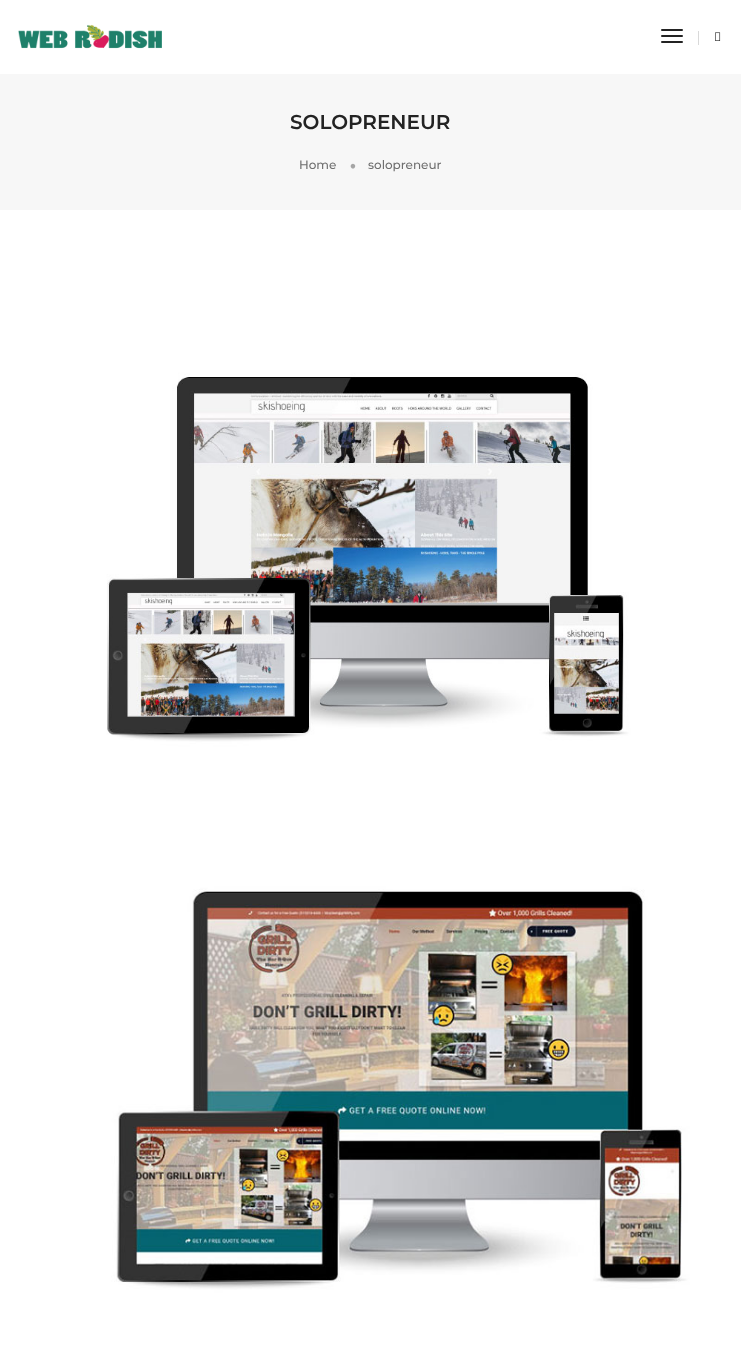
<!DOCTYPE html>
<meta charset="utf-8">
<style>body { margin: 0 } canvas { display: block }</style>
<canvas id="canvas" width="741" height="1356"></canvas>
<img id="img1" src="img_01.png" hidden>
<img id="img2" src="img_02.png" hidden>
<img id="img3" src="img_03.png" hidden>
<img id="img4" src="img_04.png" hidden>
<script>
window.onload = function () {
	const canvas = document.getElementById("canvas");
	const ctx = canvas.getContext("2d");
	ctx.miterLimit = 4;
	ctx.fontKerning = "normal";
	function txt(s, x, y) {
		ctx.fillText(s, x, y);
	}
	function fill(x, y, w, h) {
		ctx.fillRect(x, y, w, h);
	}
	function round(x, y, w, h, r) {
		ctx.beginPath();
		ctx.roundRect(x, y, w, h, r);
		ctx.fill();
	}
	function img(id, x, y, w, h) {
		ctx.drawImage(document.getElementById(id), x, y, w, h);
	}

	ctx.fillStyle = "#FFFFFF";
	fill(0, 0, 741, 1356);
	img("img1", 18, 24, 144, 25);
	ctx.fillStyle = "#232323";
	round(661, 29, 22, 2, 1);
	round(661, 35, 22, 2, 1);
	round(661, 41, 22, 2, 1);
	ctx.fillStyle = "#D9D9D9";
	fill(698, 31, 1, 14);
	img("img2", 715, 32, 6, 9);
	ctx.fillStyle = "#F7F7F7";
	fill(0, 74, 741, 136);
	img("img3", 0, 260, 741, 592);
	img("img4", 0, 852, 741, 504);
	ctx.font = "600 20px Montserrat";
	ctx.fillStyle = "#232323";
	txt("SOLOPRENEUR", 290, 129);
	ctx.font = "500 12px Montserrat";
	ctx.fillStyle = "#6F6F6F";
	txt("Home", 299, 169);
	ctx.font = "500 25px Montserrat";
	ctx.fillStyle = "#A5A5A5";
	txt("•", 349, 173);
	ctx.font = "500 12px Montserrat";
	ctx.fillStyle = "#6F6F6F";
	txt("solopreneur", 368, 169);
};
</script>
